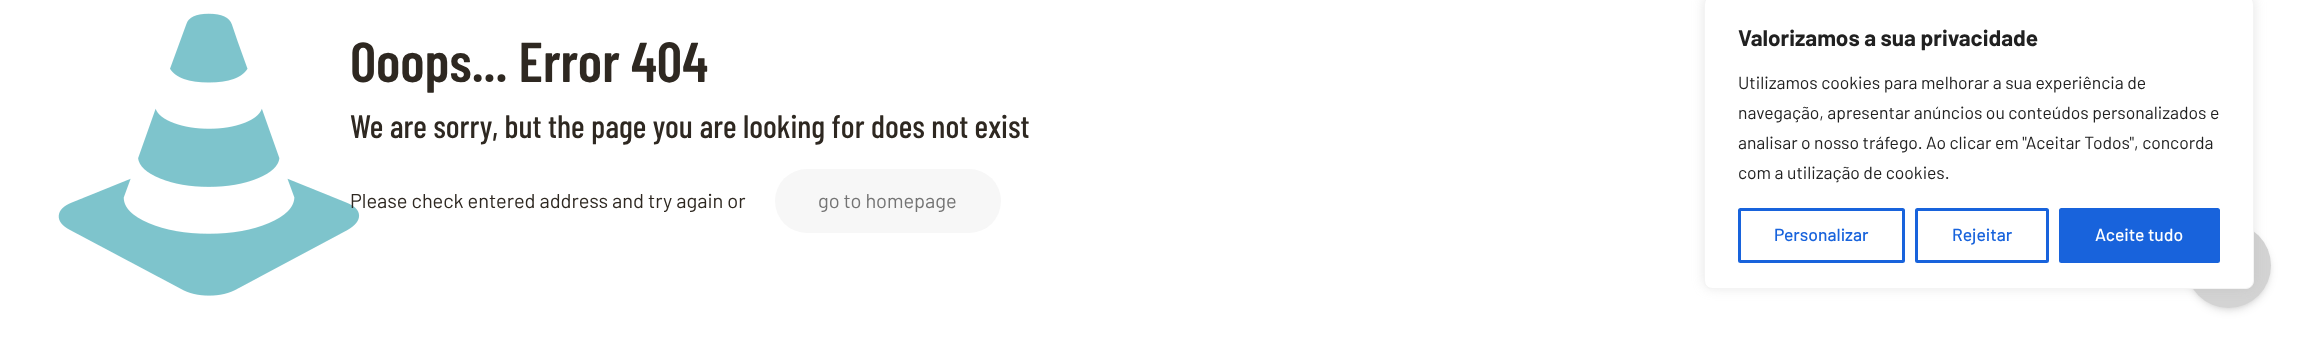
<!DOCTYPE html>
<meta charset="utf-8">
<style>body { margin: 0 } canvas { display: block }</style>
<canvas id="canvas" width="2303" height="338"></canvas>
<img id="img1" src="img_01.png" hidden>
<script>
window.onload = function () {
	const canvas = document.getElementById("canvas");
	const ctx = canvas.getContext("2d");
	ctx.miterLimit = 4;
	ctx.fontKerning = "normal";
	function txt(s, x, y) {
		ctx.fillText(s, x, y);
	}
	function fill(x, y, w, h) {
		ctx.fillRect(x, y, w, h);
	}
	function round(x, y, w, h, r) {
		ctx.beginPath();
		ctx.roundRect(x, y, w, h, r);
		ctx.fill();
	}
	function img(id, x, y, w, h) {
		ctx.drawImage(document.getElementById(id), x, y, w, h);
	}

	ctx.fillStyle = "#FFFFFF";
	fill(0, 0, 2303, 338);
	img("img1", 58, 13, 302, 283);
	ctx.fillStyle = "#F7F7F7";
	round(775, 169, 226, 64, 32);
	ctx.fillStyle = "rgba(0, 0, 0, 0.1)";
	ctx.filter = "blur(2.5px)";
	ctx.beginPath();
	ctx.roundRect(2189, 228, 80, 80, 40);
	ctx.fill();
	ctx.filter = "none";
	ctx.filter = "blur(4px)";
	ctx.beginPath();
	ctx.roundRect(2188, 229, 82, 82, 41);
	ctx.fill();
	ctx.filter = "none";
	ctx.fillStyle = "#D3D3D3";
	ctx.beginPath();
	ctx.arc(2228.5, 265.5, 42.5, 0, Math.PI * 2);
	ctx.fill();
	ctx.fillStyle = "rgba(172, 171, 171, 0.3)";
	ctx.filter = "blur(6px)";
	ctx.beginPath();
	ctx.roundRect(1704, -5, 550, 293, 8);
	ctx.fill();
	ctx.filter = "none";
	ctx.fillStyle = "#FFFFFF";
	ctx.beginPath();
	ctx.roundRect(1704.5, -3.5, 549, 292, 7.5);
	ctx.fill();
	ctx.strokeStyle = "#F4F4F4";
	ctx.stroke();
	ctx.beginPath();
	ctx.roundRect(1739.5, 209.5, 164, 52, 1);
	ctx.strokeStyle = "#1863DC";
	ctx.lineWidth = 3;
	ctx.stroke();
	ctx.beginPath();
	ctx.roundRect(1916.5, 209.5, 131, 52, 1);
	ctx.stroke();
	ctx.fillStyle = "#1863DC";
	ctx.beginPath();
	ctx.roundRect(2060.5, 209.5, 158, 52, 1);
	ctx.fill();
	ctx.stroke();
	ctx.font = "600 56.25px Barlow Condensed";
	ctx.fillStyle = "#2E2821";
	txt("Ooops... Error 404", 350, 82);
	ctx.font = "500 32.5px Barlow Condensed";
	txt("We are sorry, but the page you are looking for does not exist", 350, 138);
	ctx.font = "20px Barlow";
	txt("Please check entered address and try again or", 350, 208);
	ctx.fillStyle = "#747474";
	txt("go to homepage", 818, 208);
	ctx.font = "bold 22.5px Barlow";
	ctx.fillStyle = "#212121";
	txt("Valorizamos a sua privacidade", 1738, 46);
	ctx.font = "17.5px Barlow";
	txt("Utilizamos cookies para melhorar a sua experiência de", 1738, 89);
	txt("navegação, apresentar anúncios ou conteúdos personalizados e", 1738, 119);
	txt("analisar o nosso tráfego. Ao clicar em \"Aceitar Todos\", concorda", 1738, 149);
	txt("com a utilização de cookies.", 1738, 179);
	ctx.font = "500 17.5px Barlow";
	ctx.fillStyle = "#1863DC";
	txt("Personalizar", 1774, 241);
	txt("Rejeitar", 1952, 241);
	ctx.fillStyle = "#FFFFFF";
	txt("Aceite tudo", 2095, 241);
};
</script>
